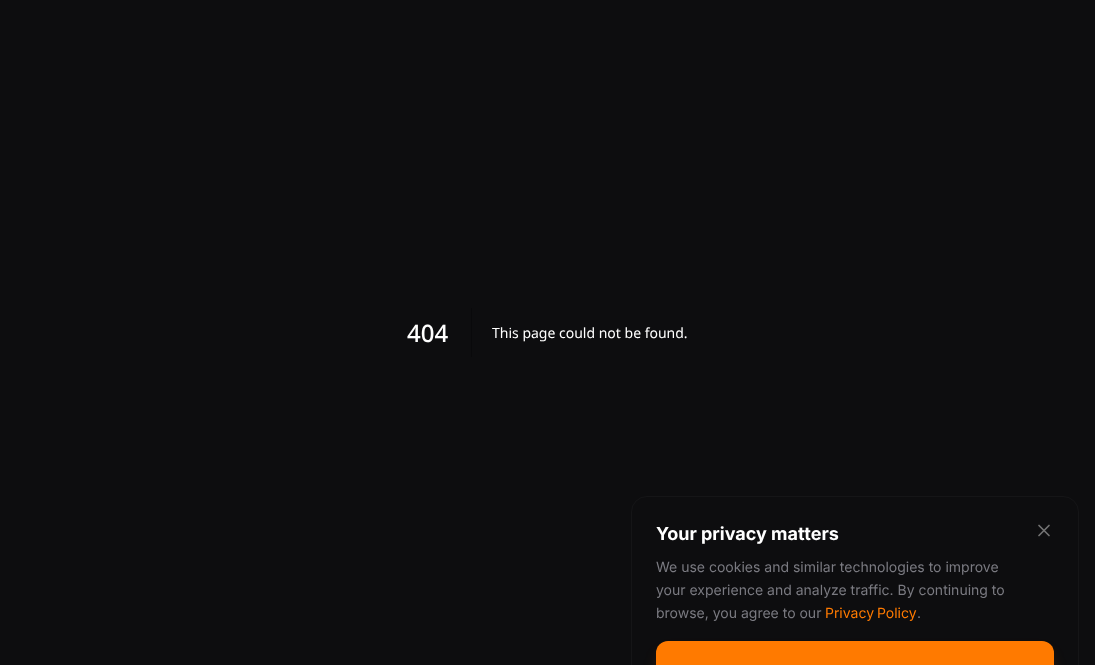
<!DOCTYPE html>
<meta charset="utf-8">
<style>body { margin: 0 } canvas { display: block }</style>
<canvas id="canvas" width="1095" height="665"></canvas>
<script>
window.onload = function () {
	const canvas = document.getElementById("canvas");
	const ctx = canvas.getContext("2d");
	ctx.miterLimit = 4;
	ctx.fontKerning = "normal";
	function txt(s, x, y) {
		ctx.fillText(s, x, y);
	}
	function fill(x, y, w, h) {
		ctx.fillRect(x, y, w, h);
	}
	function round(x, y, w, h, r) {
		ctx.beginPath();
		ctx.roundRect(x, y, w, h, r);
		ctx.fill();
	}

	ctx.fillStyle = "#0D0D0F";
	fill(0, 0, 1095, 665);
	ctx.fillStyle = "#09090B";
	fill(471, 308, 1, 49);
	ctx.beginPath();
	ctx.roundRect(631.5, 496.5, 447, 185, 15.5);
	ctx.strokeStyle = "#151517";
	ctx.stroke();
	ctx.beginPath();
	ctx.moveTo(1049, 525.5);
	ctx.lineTo(1039, 535.5);
	ctx.moveTo(1039, 525.5);
	ctx.lineTo(1049, 535.5);
	ctx.strokeStyle = "#737373";
	ctx.lineWidth = 1.7;
	ctx.lineCap = "round";
	ctx.lineJoin = "round";
	ctx.stroke();
	ctx.fillStyle = "rgba(255, 122, 0, 0.2)";
	ctx.filter = "blur(7.5px)";
	ctx.beginPath();
	ctx.roundRect(659, 654, 392, 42, 9);
	ctx.fill();
	ctx.filter = "none";
	ctx.fillStyle = "#FF7A00";
	round(656, 641, 398, 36, 12);
	ctx.font = "500 24px Noto Sans";
	ctx.fillStyle = "#FFFFFF";
	txt("404", 407, 342);
	ctx.font = "14px Noto Sans";
	txt("This page could not be found.", 492, 338);
	ctx.font = "bold 18px Inter";
	txt("Your privacy matters", 656, 540);
	ctx.font = "14px Inter";
	ctx.fillStyle = "#7A7A81";
	txt("We use cookies and similar technologies to improve", 656, 572);
	txt("your experience and analyze traffic. By continuing to", 656, 595);
	txt("browse, you agree to our", 656, 618);
	ctx.wordSpacing = "-1px";
	ctx.fillStyle = "#FF7A00";
	txt("Privacy Policy", 825, 618);
	ctx.wordSpacing = "0px";
	ctx.fillStyle = "#7A7A81";
	txt(".", 917, 618);
};
</script>
